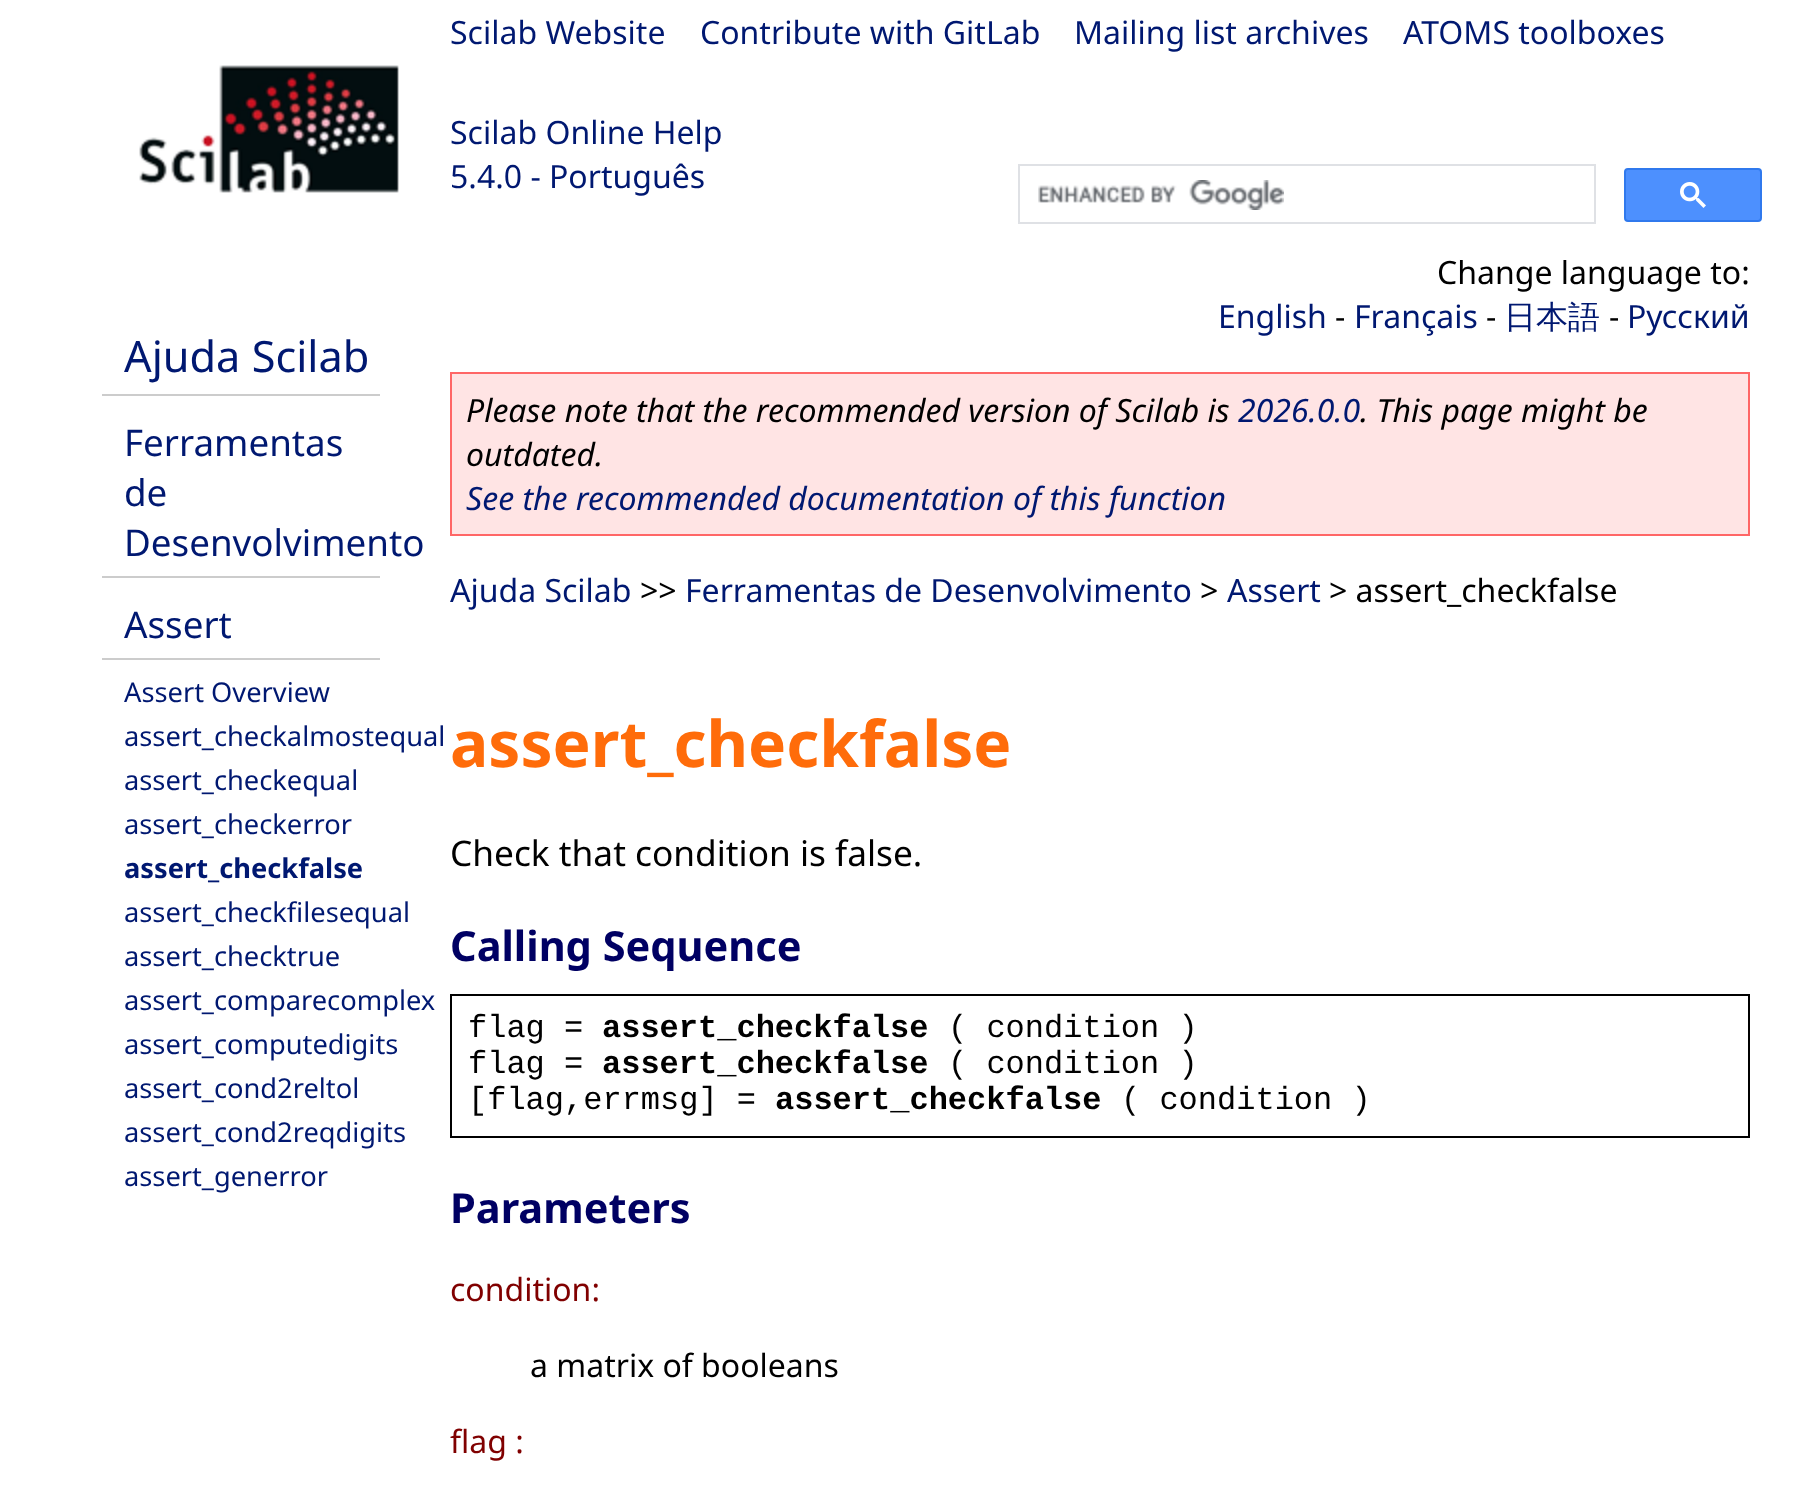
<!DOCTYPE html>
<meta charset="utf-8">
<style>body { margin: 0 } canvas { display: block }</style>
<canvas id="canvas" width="1800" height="1503"></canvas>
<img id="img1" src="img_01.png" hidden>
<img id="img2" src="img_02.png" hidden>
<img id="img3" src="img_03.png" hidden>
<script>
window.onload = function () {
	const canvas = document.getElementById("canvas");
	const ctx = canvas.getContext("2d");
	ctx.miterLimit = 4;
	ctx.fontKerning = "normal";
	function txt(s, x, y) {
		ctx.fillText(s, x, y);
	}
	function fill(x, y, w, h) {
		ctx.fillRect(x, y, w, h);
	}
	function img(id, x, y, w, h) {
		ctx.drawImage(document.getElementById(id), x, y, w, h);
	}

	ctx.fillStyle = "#FFFFFF";
	fill(0, 0, 1800, 1503);
	img("img1", 139, 65, 260, 128);
	ctx.strokeStyle = "#DFE1E5";
	ctx.lineWidth = 2;
	ctx.strokeRect(1019, 165, 576, 58);
	img("img2", 1038, 180, 246, 30);
	ctx.fillStyle = "#4D90FE";
	ctx.beginPath();
	ctx.roundRect(1625, 169, 136, 52, 3);
	ctx.fill();
	ctx.strokeStyle = "#3079ED";
	ctx.stroke();
	img("img3", 1680, 182, 26, 26);
	ctx.fillStyle = "#CCCCCC";
	fill(102, 394, 278, 2);
	fill(102, 576, 278, 2);
	fill(102, 658, 278, 2);
	ctx.fillStyle = "#FFE4E4";
	ctx.beginPath();
	ctx.rect(451, 373, 1298, 162);
	ctx.fill();
	ctx.strokeStyle = "#FF6666";
	ctx.stroke();
	ctx.strokeStyle = "#000000";
	ctx.strokeRect(451, 995, 1298, 142);
	ctx.font = "32px Noto Sans";
	ctx.fillStyle = "#001871";
	txt("Scilab Website", 450, 44);
	txt("Contribute with GitLab", 700, 44);
	txt("Mailing list archives", 1074, 44);
	txt("ATOMS toolboxes", 1403, 44);
	txt("Scilab Online Help", 450, 144);
	txt("5.4.0 - Português", 450, 188);
	ctx.font = "43.25px Noto Sans";
	txt("Ajuda Scilab", 124, 372);
	ctx.font = "36.75px Noto Sans";
	txt("Ferramentas", 124, 456);
	txt("de", 124, 506);
	txt("Desenvolvimento", 124, 556);
	txt("Assert", 124, 638);
	ctx.font = "27.25px Noto Sans";
	txt("Assert Overview", 124, 702);
	txt("assert_checkalmostequal", 124, 746);
	txt("assert_checkequal", 124, 790);
	txt("assert_checkerror", 124, 834);
	ctx.font = "bold 27.25px Noto Sans";
	txt("assert_checkfalse", 124, 878);
	ctx.font = "27.25px Noto Sans";
	txt("assert_checkfilesequal", 124, 922);
	txt("assert_checktrue", 124, 966);
	txt("assert_comparecomplex", 124, 1010);
	txt("assert_computedigits", 124, 1054);
	txt("assert_cond2reltol", 124, 1098);
	txt("assert_cond2reqdigits", 124, 1142);
	txt("assert_generror", 124, 1186);
	ctx.font = "32px Noto Sans";
	ctx.fillStyle = "#000000";
	txt("Change language to:", 1437, 284);
	ctx.fillStyle = "#FFFFFF";
	fill(1460, 259, 107, 1);
	ctx.fillStyle = "#001871";
	txt("English", 1218, 328);
	ctx.fillStyle = "#000000";
	txt("-", 1335, 328);
	ctx.fillStyle = "#001871";
	txt("Français", 1354, 328);
	ctx.fillStyle = "#000000";
	txt("-", 1486, 328);
	ctx.font = "500 32px WenQuanYi Zen Hei";
	ctx.fillStyle = "#001871";
	txt("日本語", 1504, 328);
	ctx.font = "32px Noto Sans";
	ctx.fillStyle = "#000000";
	txt("-", 1609, 328);
	ctx.fillStyle = "#001871";
	txt("Русский", 1627, 328);
	ctx.font = "italic 32px Noto Sans";
	ctx.fillStyle = "#000000";
	txt("Please note that the recommended version of Scilab is", 466, 422);
	ctx.fillStyle = "#001871";
	txt("2026.0.0", 1238, 422);
	ctx.fillStyle = "#000000";
	txt(". This page might be", 1360, 422);
	txt("outdated.", 466, 466);
	ctx.fillStyle = "#001871";
	txt("See the recommended documentation of this function", 466, 510);
	ctx.font = "32px Noto Sans";
	txt("Ajuda Scilab", 450, 602);
	ctx.fillStyle = "#000000";
	txt(">>", 640, 602);
	ctx.fillStyle = "#001871";
	txt("Ferramentas de Desenvolvimento", 685, 602);
	ctx.fillStyle = "#000000";
	txt(">", 1200, 602);
	ctx.fillStyle = "#001871";
	txt("Assert", 1227, 602);
	ctx.fillStyle = "#000000";
	txt("> assert_checkfalse", 1329, 602);
	ctx.font = "bold 64px Noto Sans";
	ctx.fillStyle = "#FF6C0A";
	txt("assert_checkfalse", 450, 767);
	ctx.font = "35.25px Noto Sans";
	ctx.fillStyle = "#000000";
	txt("Check that condition is false.", 450, 866);
	ctx.font = "bold 41.5px Noto Sans";
	ctx.fillStyle = "#000063";
	txt("Calling Sequence", 450, 961);
	ctx.font = "32px Liberation Mono";
	ctx.fillStyle = "#000000";
	txt("flag =", 468, 1037);
	ctx.font = "bold 32px Liberation Mono";
	txt("assert_checkfalse", 602, 1037);
	ctx.font = "32px Liberation Mono";
	txt("( condition )", 948, 1037);
	txt("flag =", 468, 1073);
	ctx.font = "bold 32px Liberation Mono";
	txt("assert_checkfalse", 602, 1073);
	ctx.font = "32px Liberation Mono";
	txt("( condition )", 948, 1073);
	txt("[flag,errmsg] =", 468, 1109);
	ctx.font = "bold 32px Liberation Mono";
	txt("assert_checkfalse", 775, 1109);
	ctx.font = "32px Liberation Mono";
	txt("( condition )", 1121, 1109);
	ctx.font = "bold 41.5px Noto Sans";
	ctx.fillStyle = "#000063";
	txt("Parameters", 450, 1223);
	ctx.font = "32px Noto Sans";
	ctx.fillStyle = "#800000";
	txt("condition:", 450, 1301);
	ctx.fillStyle = "#000000";
	txt("a matrix of booleans", 530, 1377);
	ctx.fillStyle = "#800000";
	txt("flag :", 450, 1453);
};
</script>
